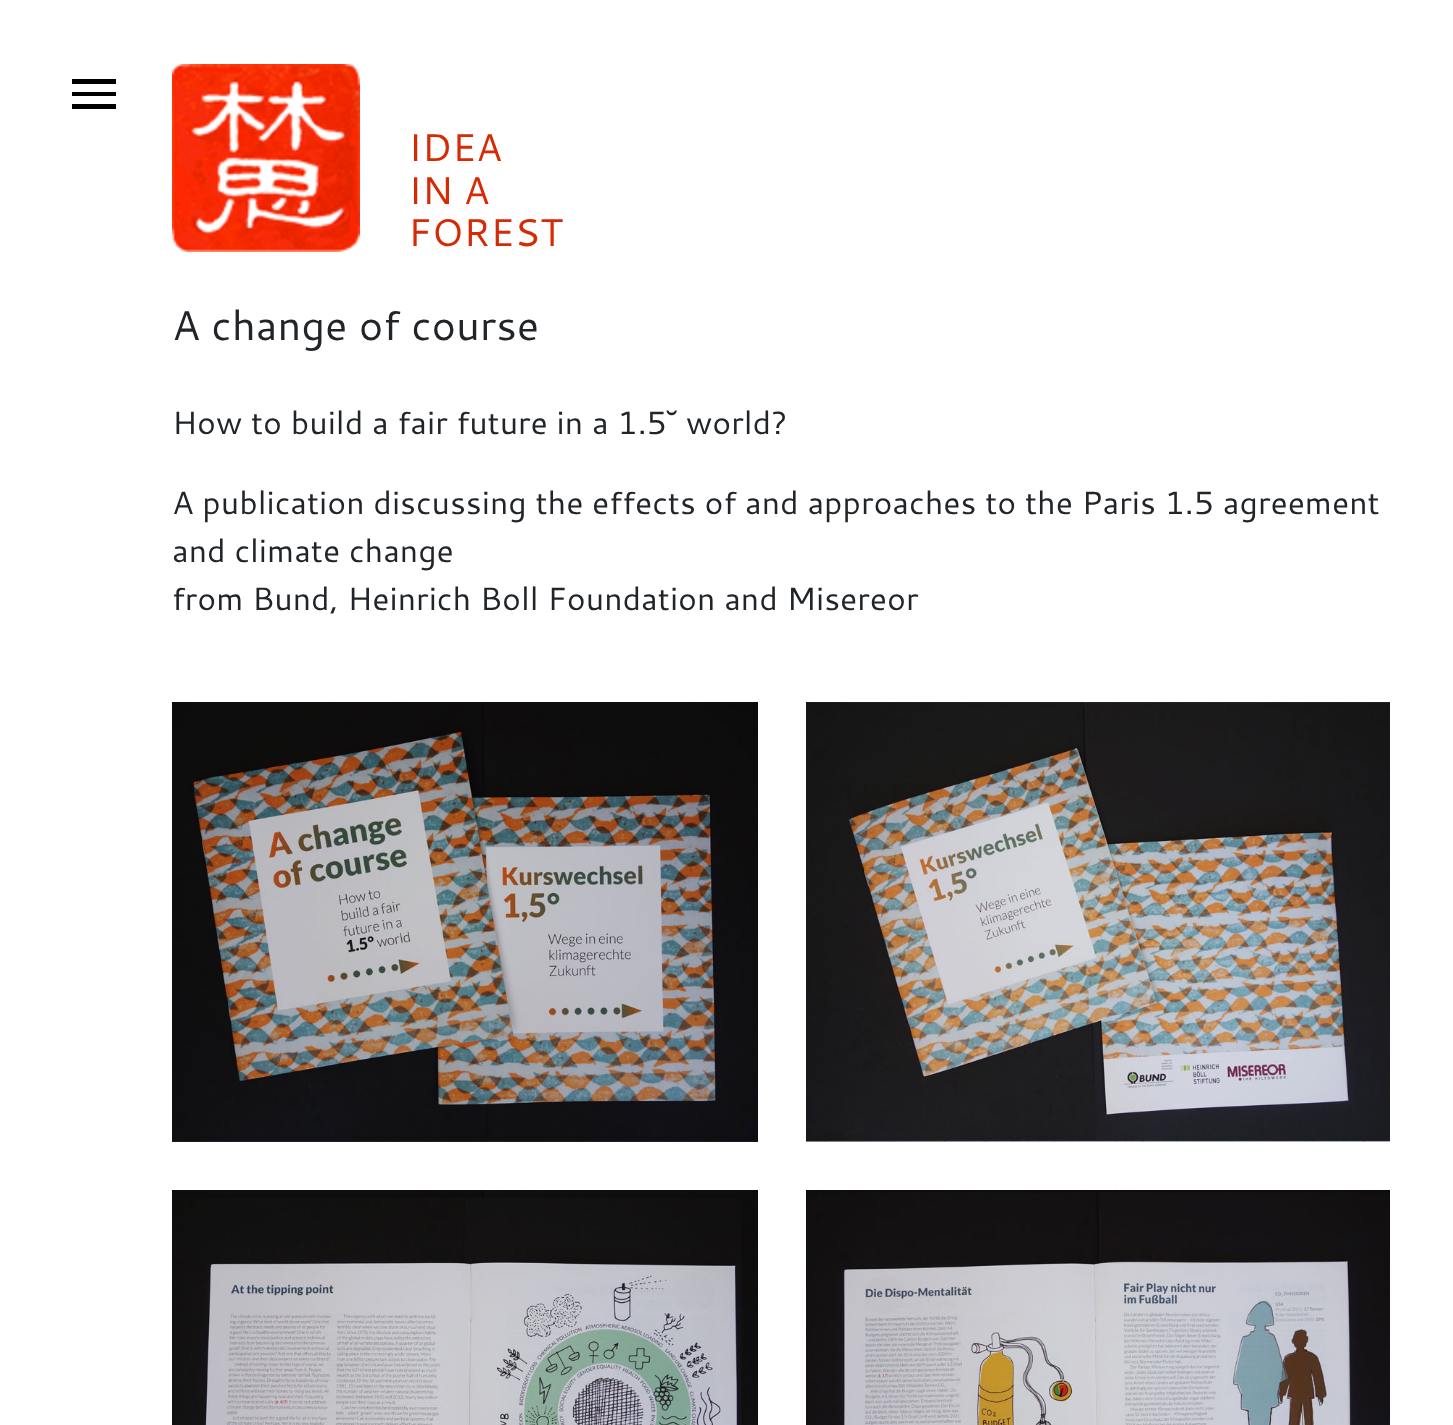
<!DOCTYPE html>
<meta charset="utf-8">
<style>body { margin: 0 } canvas { display: block }</style>
<canvas id="canvas" width="1453" height="1425"></canvas>
<img id="img1" src="img_01.png" hidden>
<img id="img2" src="img_02.png" hidden>
<img id="img3" src="img_03.png" hidden>
<img id="img4" src="img_04.png" hidden>
<img id="img5" src="img_05.png" hidden>
<script>
window.onload = function () {
	const canvas = document.getElementById("canvas");
	const ctx = canvas.getContext("2d");
	ctx.miterLimit = 4;
	ctx.fontKerning = "normal";
	function txt(s, x, y) {
		ctx.fillText(s, x, y);
	}
	function fill(x, y, w, h) {
		ctx.fillRect(x, y, w, h);
	}
	function img(id, x, y, w, h) {
		ctx.drawImage(document.getElementById(id), x, y, w, h);
	}

	ctx.fillStyle = "#FFFFFF";
	fill(0, 0, 1453, 1425);
	ctx.fillStyle = "#000000";
	ctx.beginPath();
	ctx.moveTo(72, 79);
	ctx.lineTo(116, 79);
	ctx.lineTo(116, 84);
	ctx.lineTo(72, 84);
	ctx.lineTo(72, 79);
	ctx.moveTo(72, 92);
	ctx.lineTo(116, 92);
	ctx.lineTo(116, 96);
	ctx.lineTo(72, 96);
	ctx.lineTo(72, 92);
	ctx.moveTo(72, 104);
	ctx.lineTo(116, 104);
	ctx.lineTo(116, 109);
	ctx.lineTo(72, 109);
	ctx.closePath();
	ctx.fill();
	img("img1", 172, 64, 188, 188);
	img("img2", 172, 702, 586, 440);
	img("img3", 806, 702, 584, 440);
	img("img4", 172, 1190, 586, 235);
	img("img5", 806, 1190, 584, 235);
	ctx.font = "38.5px Cantarell";
	ctx.fillStyle = "#D62A04";
	txt("IDEA", 408, 161);
	txt("IN A", 408, 204);
	txt("FOREST", 408, 246);
	ctx.font = "41.5px Cantarell";
	ctx.fillStyle = "#212529";
	txt("A change of course", 172, 340);
	ctx.font = "32px Cantarell";
	txt("How to build a fair future in a 1.5", 172, 434);
	ctx.font = "32px Liberation Sans";
	txt("˘", 667, 434);
	ctx.font = "32px Cantarell";
	txt("world?", 686, 434);
	txt("A publication discussing the effects of and approaches to the Paris 1.5 agreement", 172, 514);
	txt("and climate change", 172, 562);
	txt("from Bund, Heinrich Boll Foundation and Misereor", 172, 610);
};
</script>
